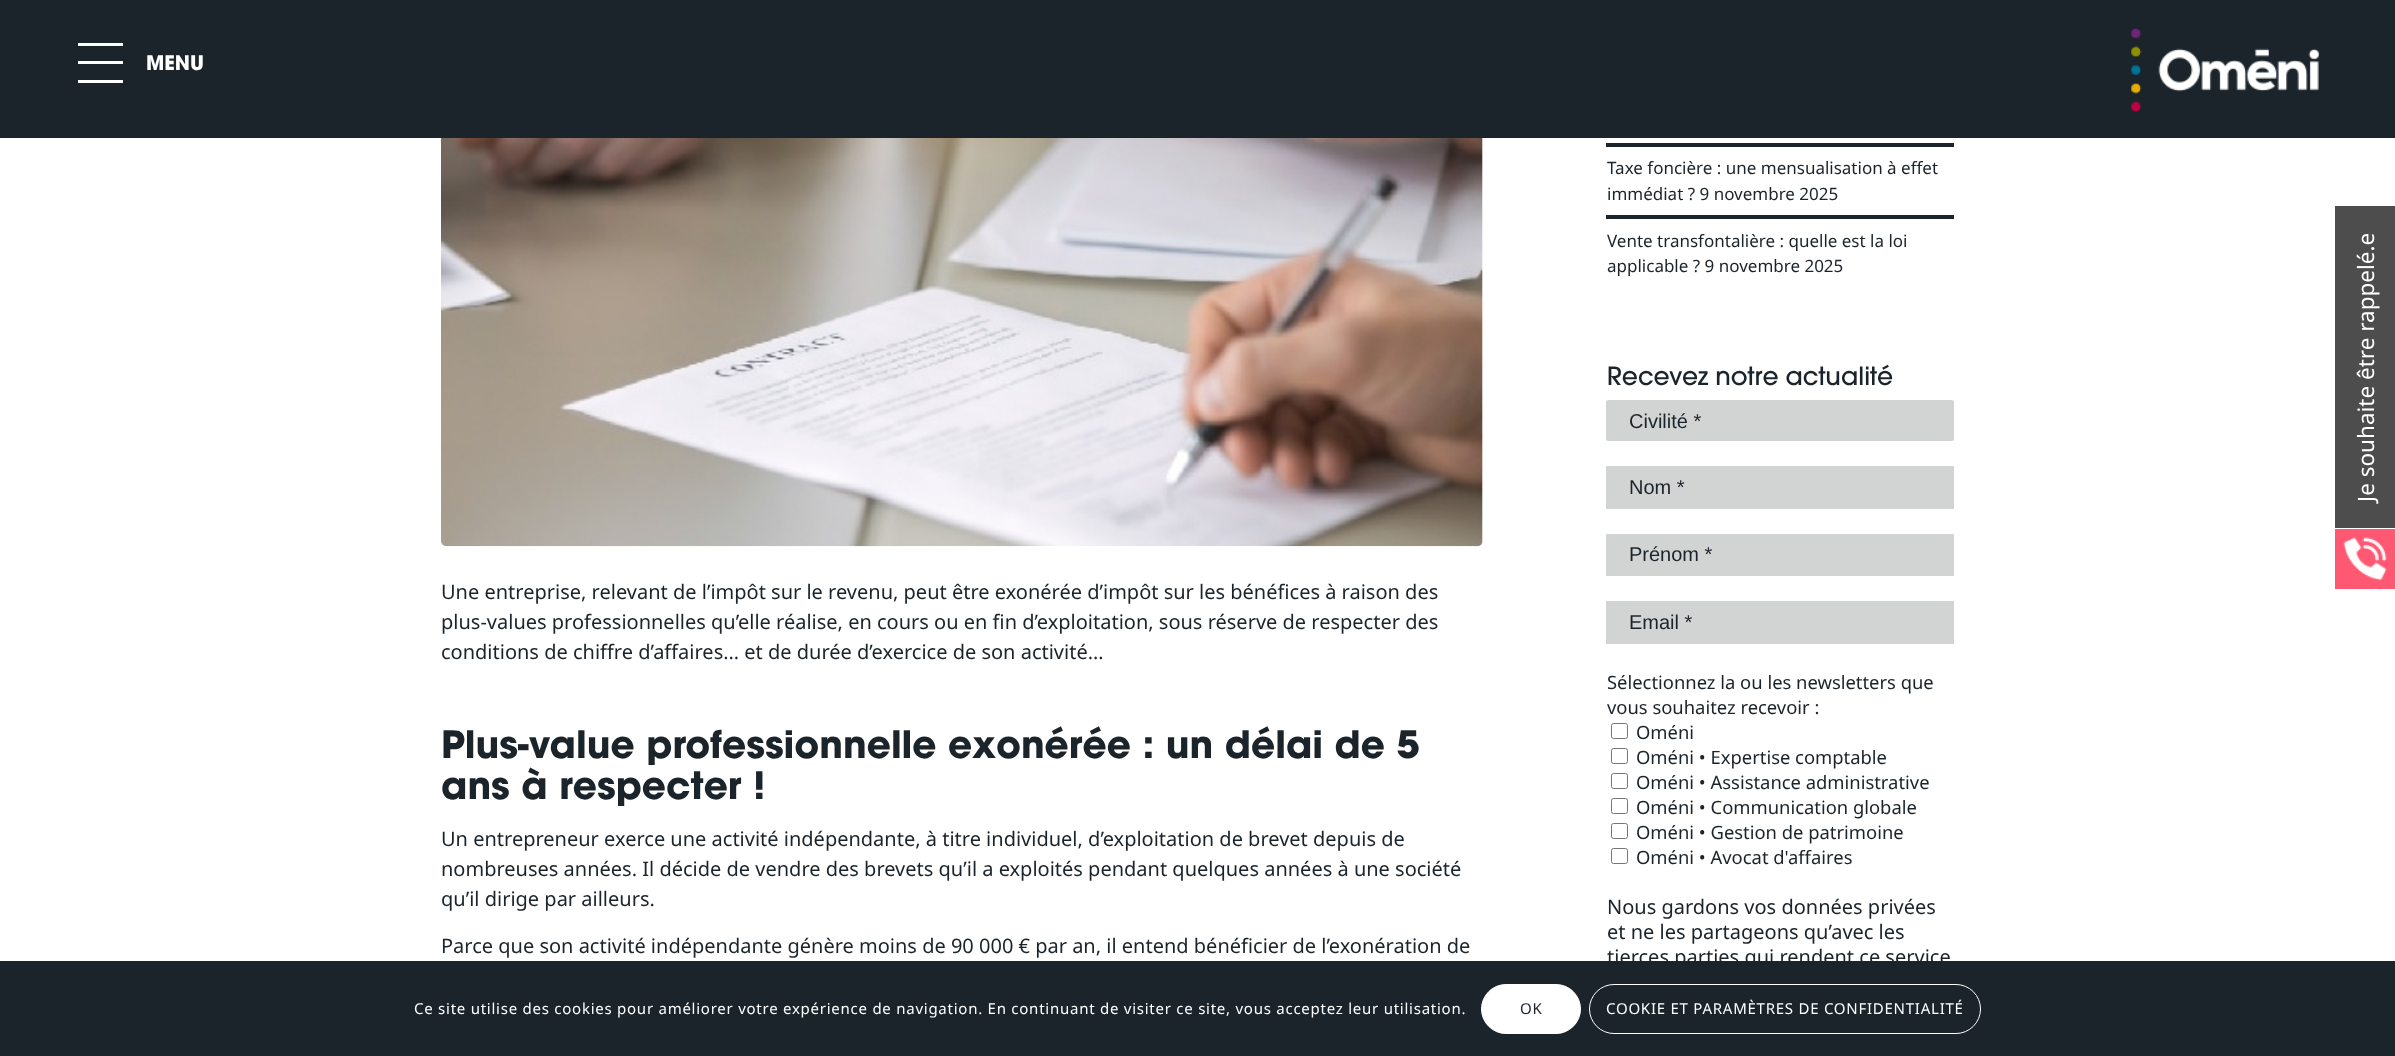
<!DOCTYPE html>
<meta charset="utf-8">
<style>body { margin: 0 } canvas { display: block }</style>
<canvas id="canvas" width="2395" height="1056"></canvas>
<img id="img1" src="img_01.png" hidden>
<img id="img2" src="img_02.png" hidden>
<img id="img3" src="img_03.png" hidden>
<script>
window.onload = function () {
	const canvas = document.getElementById("canvas");
	const ctx = canvas.getContext("2d");
	ctx.miterLimit = 4;
	ctx.fontKerning = "normal";
	function txt(s, x, y) {
		ctx.fillText(s, x, y);
	}
	function fill(x, y, w, h) {
		ctx.fillRect(x, y, w, h);
	}
	function round(x, y, w, h, r) {
		ctx.beginPath();
		ctx.roundRect(x, y, w, h, r);
		ctx.fill();
	}
	function img(id, x, y, w, h) {
		ctx.drawImage(document.getElementById(id), x, y, w, h);
	}

	ctx.fillStyle = "#FFFFFF";
	fill(0, 0, 2395, 1056);
	ctx.fillStyle = "#1B242A";
	fill(0, 0, 2395, 138);
	ctx.fillStyle = "#FFFFFF";
	fill(78, 61, 45, 3);
	fill(78, 43, 45, 3);
	fill(78, 80, 45, 3);
	img("img1", 2131, 28, 188, 84);
	img("img2", 441, 138, 1042, 409);
	ctx.fillStyle = "#1B242A";
	fill(1606, 143, 348, 4);
	fill(1606, 215, 348, 4);
	ctx.fillStyle = "#D1D4D3";
	round(1606, 400, 348, 41, 2.5);
	fill(1606, 466, 348, 43);
	fill(1606, 534, 348, 42);
	fill(1606, 601, 348, 43);
	ctx.beginPath();
	ctx.roundRect(1611.5, 723.5, 16, 15, 2);
	ctx.strokeStyle = "#767676";
	ctx.stroke();
	ctx.beginPath();
	ctx.roundRect(1611.5, 748.5, 16, 15, 2);
	ctx.stroke();
	ctx.beginPath();
	ctx.roundRect(1611.5, 773.5, 16, 15, 2);
	ctx.stroke();
	ctx.beginPath();
	ctx.roundRect(1611.5, 798.5, 16, 15, 2);
	ctx.stroke();
	ctx.beginPath();
	ctx.roundRect(1611.5, 823.5, 16, 15, 2);
	ctx.stroke();
	ctx.beginPath();
	ctx.roundRect(1611.5, 848.5, 16, 15, 2);
	ctx.stroke();
	ctx.fillStyle = "#FF5873";
	fill(2335, 529, 60, 60);
	img("img3", 2343, 537, 44, 44);
	ctx.fillStyle = "#4D4D4D";
	fill(2335, 206, 60, 322);
	ctx.fillStyle = "#1B242A";
	fill(0, 961, 2395, 95);
	ctx.fillStyle = "#FFFFFF";
	ctx.beginPath();
	ctx.roundRect(1481.5, 984.5, 99, 49, 24.5);
	ctx.fill();
	ctx.strokeStyle = "#FFFFFF";
	ctx.stroke();
	ctx.beginPath();
	ctx.roundRect(1589.5, 984.5, 391, 49, 24.5);
	ctx.stroke();
	ctx.font = "bold 20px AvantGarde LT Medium";
	txt("MENU", 146, 70);
	ctx.font = "20px Noto Sans";
	ctx.fillStyle = "#1B242A";
	txt("Une entreprise, relevant de l’impôt sur le revenu, peut être exonérée d’impôt sur les bénéfices à raison des", 441, 599);
	txt("plus-values professionnelles qu’elle réalise, en cours ou en fin d’exploitation, sous réserve de respecter des", 441, 629);
	txt("conditions de chiffre d’affaires… et de durée d’exercice de son activité…", 441, 659);
	ctx.font = "bold 37.5px AvantGarde LT Medium";
	txt("Plus-value professionnelle exonérée : un délai de 5", 441, 758);
	txt("ans à respecter !", 441, 799);
	ctx.font = "20px Noto Sans";
	txt("Un entrepreneur exerce une activité indépendante, à titre individuel, d’exploitation de brevet depuis de", 441, 846);
	txt("nombreuses années. Il décide de vendre des brevets qu’il a exploités pendant quelques années à une société", 441, 876);
	txt("qu’il dirige par ailleurs.", 441, 906);
	txt("Parce que son activité indépendante génère moins de 90 000 € par an, il entend bénéficier de l’exonération de", 441, 953);
	ctx.font = "17px Noto Sans";
	txt("Taxe foncière : une mensualisation à effet", 1607, 174);
	txt("immédiat ? 9 novembre 2025", 1607, 200);
	txt("Vente transfontalière : quelle est la loi", 1607, 247);
	txt("applicable ? 9 novembre 2025", 1607, 272);
	ctx.font = "500 25px AvantGarde LT Medium";
	txt("Recevez notre actualité", 1607, 385);
	ctx.font = "20px Liberation Sans";
	txt("Civilité *", 1629, 428);
	txt("Nom *", 1629, 494);
	txt("Prénom *", 1629, 561);
	txt("Email *", 1629, 629);
	ctx.font = "18.4px Noto Sans";
	txt("Sélectionnez la ou les newsletters que", 1607, 689);
	txt("vous souhaitez recevoir :", 1607, 714);
	txt("Oméni", 1636, 739);
	txt("Oméni • Expertise comptable", 1636, 764);
	txt("Oméni • Assistance administrative", 1636, 789);
	txt("Oméni • Communication globale", 1636, 814);
	txt("Oméni • Gestion de patrimoine", 1636, 839);
	txt("Oméni • Avocat d'affaires", 1636, 864);
	ctx.font = "20px Noto Sans";
	txt("Nous gardons vos données privées", 1607, 914);
	txt("et ne les partageons qu’avec les", 1607, 939);
	txt("tierces parties qui rendent ce service", 1607, 964);
	ctx.font = "22.5px Noto Sans";
	ctx.fillStyle = "#FFFFFF";
	ctx.save();
	ctx.translate(2374, 502);
	ctx.rotate(-90 * Math.PI / 180);
	ctx.fillText("Je souhaite être rappelé.e", 0, 0);
	ctx.restore();
	ctx.letterSpacing = "0.75px";
	ctx.font = "15px Noto Sans";
	txt("Ce site utilise des cookies pour améliorer votre expérience de navigation. En continuant de visiter ce site, vous acceptez leur utilisation.", 414, 1014);
	ctx.fillStyle = "#1B242A";
	txt("OK", 1520, 1014);
	ctx.fillStyle = "#FFFFFF";
	txt("COOKIE ET PARAMÈTRES DE CONFIDENTIALITÉ", 1606, 1014);
};
</script>
